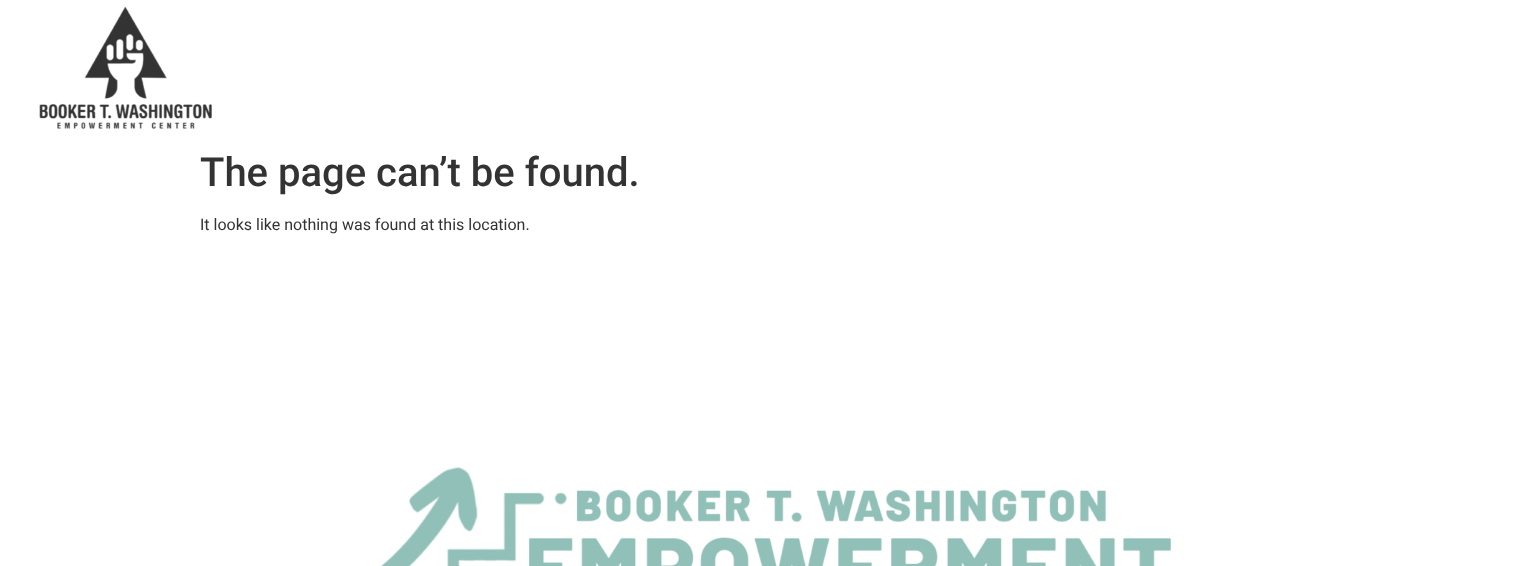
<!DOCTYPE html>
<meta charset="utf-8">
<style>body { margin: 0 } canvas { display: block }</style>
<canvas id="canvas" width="1539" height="566"></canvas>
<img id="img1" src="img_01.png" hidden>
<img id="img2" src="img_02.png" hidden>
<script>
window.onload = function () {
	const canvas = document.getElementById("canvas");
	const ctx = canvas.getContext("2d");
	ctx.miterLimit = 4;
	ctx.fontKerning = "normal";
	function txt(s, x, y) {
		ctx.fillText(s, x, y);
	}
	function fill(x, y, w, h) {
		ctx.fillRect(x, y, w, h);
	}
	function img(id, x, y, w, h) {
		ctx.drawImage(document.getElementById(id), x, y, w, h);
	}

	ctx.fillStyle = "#FFFFFF";
	fill(0, 0, 1539, 566);
	img("img1", 39, 6, 173, 123);
	img("img2", 380, 467, 791, 99);
	ctx.font = "500 40px Roboto";
	ctx.fillStyle = "#333333";
	txt("The page can’t be found.", 200, 186);
	ctx.font = "16px Roboto";
	txt("It looks like nothing was found at this location.", 200, 230);
};
</script>
